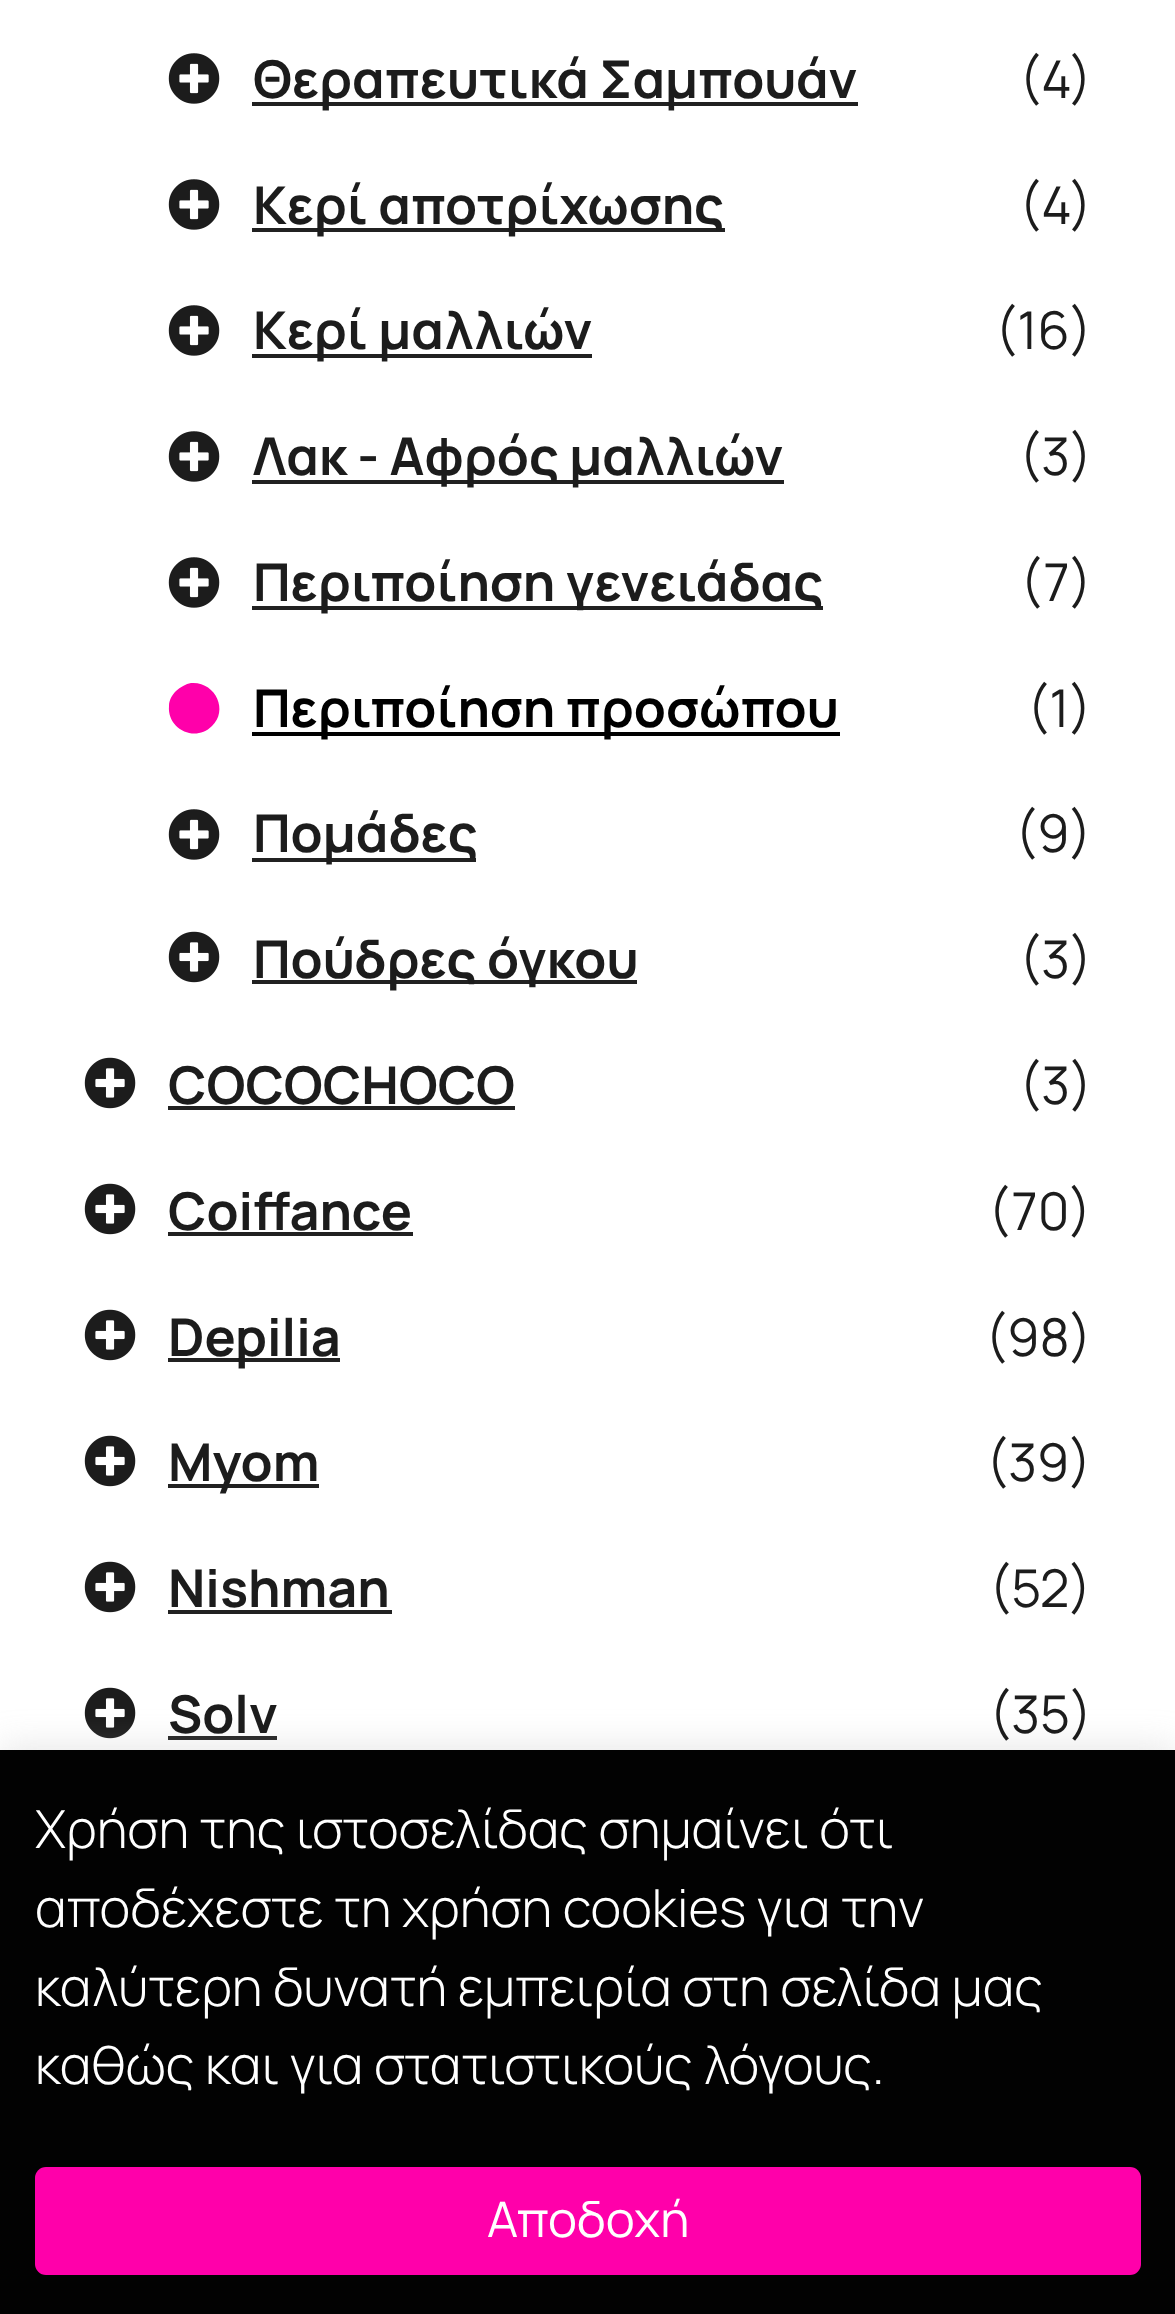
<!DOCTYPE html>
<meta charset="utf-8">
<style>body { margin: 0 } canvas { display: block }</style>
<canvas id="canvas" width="1175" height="2314"></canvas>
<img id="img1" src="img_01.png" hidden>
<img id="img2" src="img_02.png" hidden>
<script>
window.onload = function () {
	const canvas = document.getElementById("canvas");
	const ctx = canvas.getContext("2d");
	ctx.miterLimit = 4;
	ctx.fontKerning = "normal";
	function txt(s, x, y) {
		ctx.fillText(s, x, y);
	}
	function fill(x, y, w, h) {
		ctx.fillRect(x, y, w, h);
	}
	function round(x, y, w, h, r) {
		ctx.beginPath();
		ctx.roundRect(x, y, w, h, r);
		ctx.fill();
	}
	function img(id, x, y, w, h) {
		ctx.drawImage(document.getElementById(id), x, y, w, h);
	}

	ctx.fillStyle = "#FFFFFF";
	fill(0, 0, 1175, 2314);
	img("img1", 168, 53, 52, 51);
	ctx.fillStyle = "#212121";
	fill(252, 102, 606, 4);
	img("img1", 168, 179, 52, 51);
	fill(252, 228, 473, 4);
	img("img1", 168, 305, 52, 51);
	fill(252, 354, 340, 4);
	img("img1", 168, 431, 52, 51);
	fill(252, 480, 532, 4);
	img("img1", 168, 557, 52, 51);
	fill(252, 606, 571, 4);
	ctx.fillStyle = "#FF00AA";
	ctx.beginPath();
	ctx.moveTo(176, 691);
	ctx.bezierCurveTo(180, 687, 186, 684, 191, 683);
	ctx.bezierCurveTo(215, 681, 229, 710, 212, 726);
	ctx.bezierCurveTo(195, 743, 167, 729, 169, 706);
	ctx.bezierCurveTo(169, 700, 172, 695, 176, 691);
	ctx.closePath();
	ctx.fill();
	ctx.fillStyle = "#000000";
	fill(252, 732, 588, 4);
	img("img1", 168, 809, 52, 51);
	ctx.fillStyle = "#212121";
	fill(252, 858, 224, 4);
	img("img2", 168, 931, 52, 52);
	fill(252, 980, 385, 4);
	img("img2", 84, 1057, 52, 52);
	fill(168, 1106, 347, 4);
	img("img2", 84, 1183, 52, 52);
	fill(168, 1232, 245, 4);
	img("img2", 84, 1309, 52, 52);
	fill(168, 1358, 172, 4);
	img("img2", 84, 1435, 52, 52);
	fill(168, 1484, 151, 4);
	img("img2", 84, 1561, 52, 52);
	fill(168, 1610, 224, 4);
	img("img2", 84, 1687, 52, 52);
	fill(168, 1736, 109, 4);
	ctx.fillStyle = "rgba(172, 171, 171, 0.3)";
	ctx.filter = "blur(17.5px)";
	ctx.beginPath();
	ctx.rect(0, 1747, 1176, 567);
	ctx.fill();
	ctx.filter = "none";
	ctx.fillStyle = "#020202";
	fill(0, 1750, 1175, 564);
	ctx.fillStyle = "#FF00AA";
	round(35, 2167, 1106, 108, 11);
	ctx.font = "bold 52px Manrope";
	ctx.fillStyle = "#1C1C1C";
	txt("Θεραπευτικά Σαμπουάν", 253, 98);
	ctx.font = "52px Manrope";
	txt("(4)", 1019, 98);
	ctx.font = "bold 52px Manrope";
	txt("Κερί αποτρίχωσης", 253, 224);
	ctx.font = "52px Manrope";
	txt("(4)", 1019, 224);
	ctx.font = "bold 52px Manrope";
	txt("Κερί μαλλιών", 253, 349);
	ctx.font = "52px Manrope";
	txt("(16)", 995, 349);
	ctx.font = "bold 52px Manrope";
	txt("Λακ - Αφρός μαλλιών", 253, 475);
	ctx.font = "52px Manrope";
	txt("(3)", 1019, 475);
	ctx.font = "bold 52px Manrope";
	txt("Περιποίηση γενειάδας", 253, 601);
	ctx.font = "52px Manrope";
	txt("(7)", 1020, 601);
	ctx.font = "bold 52px Manrope";
	ctx.fillStyle = "#000000";
	txt("Περιποίηση προσώπου", 253, 727);
	ctx.font = "52px Manrope";
	ctx.fillStyle = "#1C1C1C";
	txt("(1)", 1027, 727);
	ctx.font = "bold 52px Manrope";
	txt("Πομάδες", 253, 852);
	ctx.font = "52px Manrope";
	txt("(9)", 1015, 852);
	ctx.font = "bold 52px Manrope";
	txt("Πούδρες όγκου", 253, 978);
	ctx.font = "52px Manrope";
	txt("(3)", 1019, 978);
	ctx.font = "bold 52px Manrope";
	txt("COCOCHOCO", 168, 1104);
	ctx.font = "52px Manrope";
	txt("(3)", 1019, 1104);
	ctx.font = "bold 52px Manrope";
	txt("Coiffance", 168, 1230);
	ctx.font = "52px Manrope";
	txt("(70)", 988, 1230);
	ctx.font = "bold 52px Manrope";
	txt("Depilia", 168, 1356);
	ctx.font = "52px Manrope";
	txt("(98)", 985, 1356);
	ctx.font = "bold 52px Manrope";
	txt("Myom", 168, 1481);
	ctx.font = "52px Manrope";
	txt("(39)", 986, 1481);
	ctx.font = "bold 52px Manrope";
	txt("Nishman", 168, 1607);
	ctx.font = "52px Manrope";
	txt("(52)", 989, 1607);
	ctx.font = "bold 52px Manrope";
	txt("Solv", 168, 1733);
	ctx.font = "52px Manrope";
	txt("(35)", 989, 1733);
	ctx.font = "300 52.5px Manrope";
	ctx.fillStyle = "#FFFFFF";
	txt("Χρήση της ιστοσελίδας σημαίνει ότι", 35, 1848);
	txt("αποδέχεστε τη χρήση cookies για την", 35, 1927);
	txt("καλύτερη δυνατή εμπειρία στη σελίδα μας", 35, 2006);
	txt("καθώς και για στατιστικούς λόγους.", 35, 2084);
	ctx.font = "49px Manrope";
	txt("Αποδοχή", 487, 2237);
};
</script>
